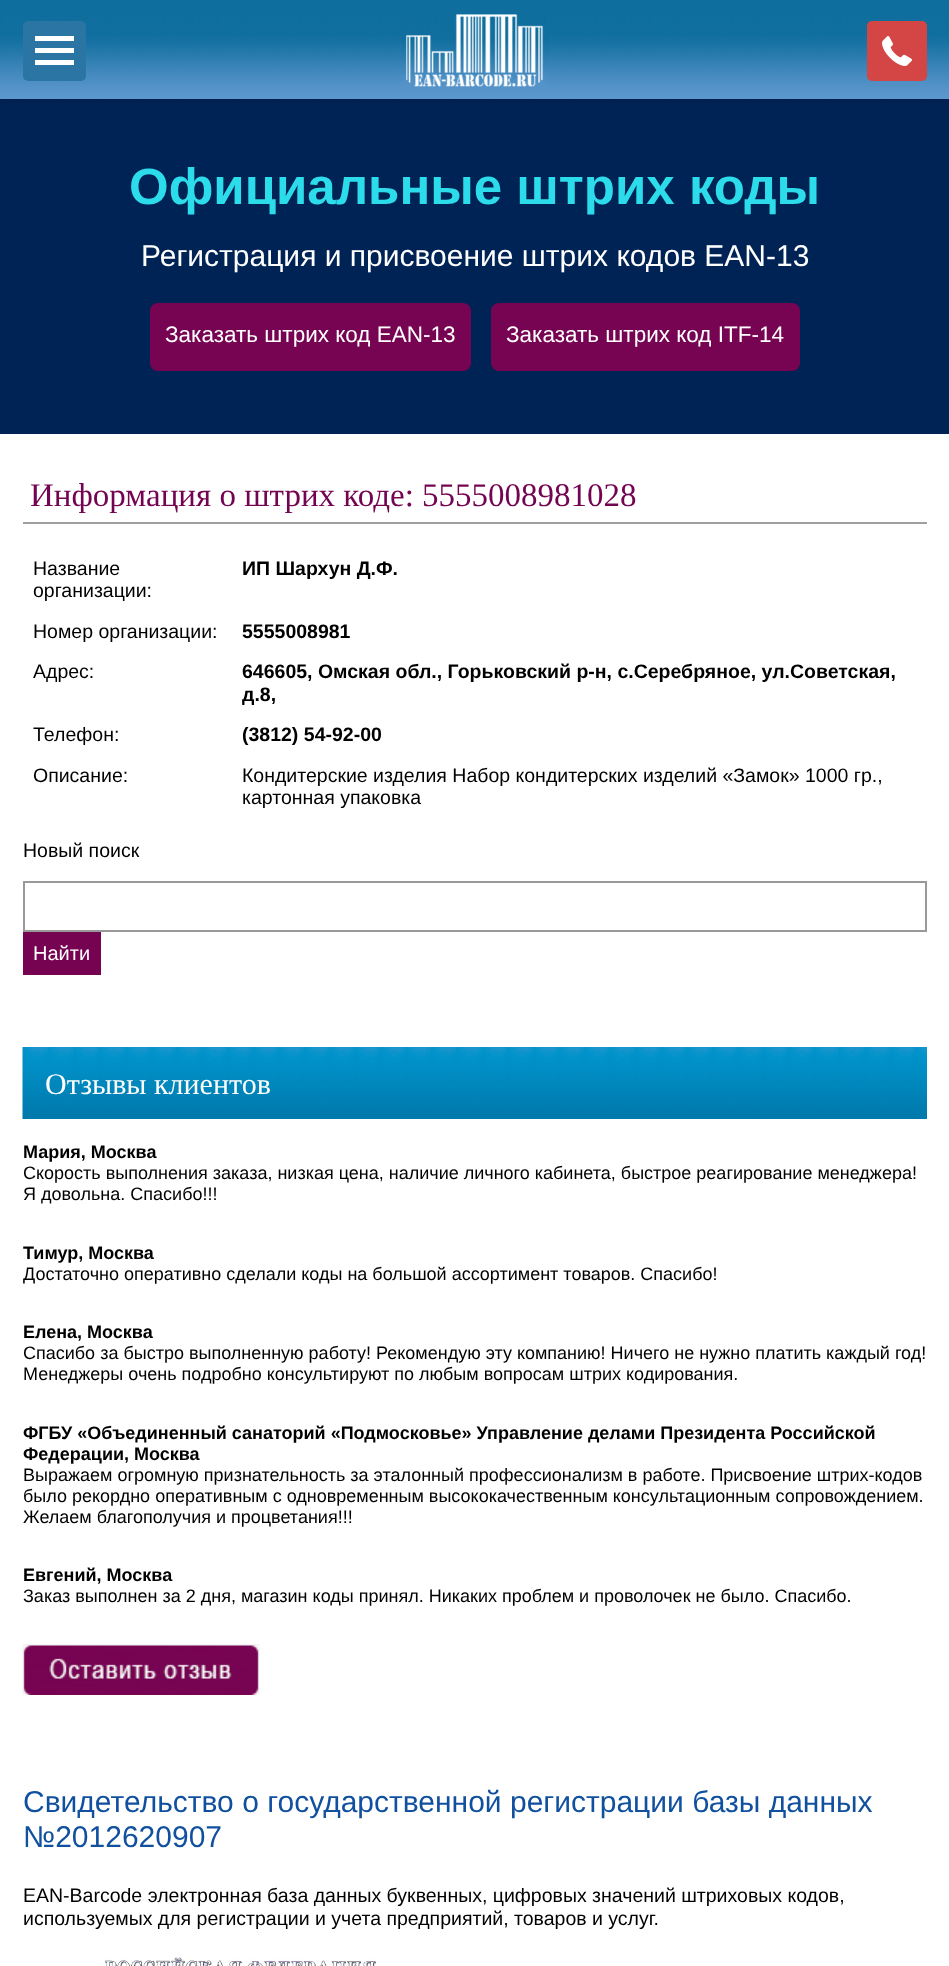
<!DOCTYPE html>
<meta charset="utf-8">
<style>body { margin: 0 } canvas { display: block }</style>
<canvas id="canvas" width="949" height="1966"></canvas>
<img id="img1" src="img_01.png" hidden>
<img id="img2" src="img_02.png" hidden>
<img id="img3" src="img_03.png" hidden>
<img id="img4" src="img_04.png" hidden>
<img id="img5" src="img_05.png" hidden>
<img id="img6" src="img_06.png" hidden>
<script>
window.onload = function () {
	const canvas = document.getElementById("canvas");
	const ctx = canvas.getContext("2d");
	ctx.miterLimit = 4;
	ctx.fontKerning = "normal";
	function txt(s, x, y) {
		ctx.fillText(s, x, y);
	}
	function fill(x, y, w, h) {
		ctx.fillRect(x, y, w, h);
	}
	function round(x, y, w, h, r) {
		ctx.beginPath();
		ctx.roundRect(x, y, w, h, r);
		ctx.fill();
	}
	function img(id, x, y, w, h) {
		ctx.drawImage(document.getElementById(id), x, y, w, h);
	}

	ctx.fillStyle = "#FFFFFF";
	fill(0, 0, 949, 1966);
	ctx.fillStyle = "#002356";
	fill(0, 99, 949, 335);
	ctx.fillStyle = "rgba(0, 0, 0, 0.2)";
	ctx.filter = "blur(4px)";
	ctx.beginPath();
	ctx.rect(0, 0, 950, 99);
	ctx.fill();
	ctx.filter = "none";
	img("img1", 0, 0, 949, 99);
	ctx.fillStyle = "#2B75A5";
	round(23, 21, 63, 60, 5);
	ctx.fillStyle = "#FFFFFF";
	fill(35, 48, 39, 5);
	fill(35, 36, 39, 5);
	fill(35, 60, 39, 5);
	img("img2", 401, 13, 148, 74);
	ctx.fillStyle = "#D44545";
	round(867, 21, 60, 60, 5);
	img("img3", 882, 36, 30, 30);
	ctx.fillStyle = "#770452";
	round(150, 303, 321, 68, 8);
	round(491, 303, 309, 68, 8);
	ctx.fillStyle = "#9F9F9F";
	fill(23, 522, 904, 2);
	ctx.strokeStyle = "#999999";
	ctx.lineWidth = 2;
	ctx.strokeRect(24, 882, 902, 49);
	ctx.fillStyle = "#760351";
	fill(23, 932, 78, 43);
	img("img4", 22, 1047, 905, 72);
	img("img5", 22, 1644, 238, 51);
	img("img6", 104, 1957, 272, 9);
	ctx.font = "bold 51px Liberation Sans";
	ctx.fillStyle = "#2DDCEA";
	txt("Официальные штрих коды", 129, 204);
	ctx.font = "30px Liberation Sans";
	ctx.fillStyle = "#FFFFFF";
	txt("Регистрация и присвоение штрих кодов EAN-13", 141, 266);
	ctx.font = "22.5px Liberation Sans";
	txt("Заказать штрих код EAN-13", 165, 342);
	txt("Заказать штрих код ITF-14", 506, 342);
	ctx.font = "33px Liberation Serif";
	ctx.fillStyle = "#730451";
	txt("Информация о штрих коде: 5555008981028", 30, 506);
	ctx.font = "19.5px Liberation Sans";
	ctx.fillStyle = "#000000";
	txt("Название", 33, 575);
	txt("организации:", 33, 597);
	ctx.font = "bold 19.5px Liberation Sans";
	txt("ИП Шархун Д.Ф.", 242, 575);
	ctx.font = "19.5px Liberation Sans";
	txt("Номер организации:", 33, 638);
	ctx.font = "bold 19.5px Liberation Sans";
	txt("5555008981", 242, 638);
	ctx.font = "19.5px Liberation Sans";
	txt("Адрес:", 33, 678);
	ctx.font = "bold 19.5px Liberation Sans";
	txt("646605, Омская обл., Горьковский р-н, с.Серебряное, ул.Советская,", 242, 678);
	txt("д.8,", 242, 701);
	ctx.font = "19.5px Liberation Sans";
	txt("Телефон:", 33, 741);
	ctx.font = "bold 19.5px Liberation Sans";
	txt("(3812) 54-92-00", 242, 741);
	ctx.font = "19.5px Liberation Sans";
	txt("Описание:", 33, 782);
	txt("Кондитерские изделия Набор кондитерских изделий «Замок» 1000 гр.,", 242, 782);
	txt("картонная упаковка", 242, 804);
	txt("Новый поиск", 23, 857);
	ctx.font = "20px Liberation Sans";
	ctx.fillStyle = "#FFFFFF";
	txt("Найти", 33, 960);
	ctx.font = "30px Liberation Serif";
	txt("Отзывы клиентов", 45, 1094);
	ctx.font = "bold 18px Liberation Sans";
	ctx.fillStyle = "#000000";
	txt("Мария, Москва", 23, 1158);
	ctx.font = "18px Liberation Sans";
	txt("Скорость выполнения заказа, низкая цена, наличие личного кабинета, быстрое реагирование менеджера!", 23, 1179);
	txt("Я довольна. Спасибо!!!", 23, 1200);
	ctx.font = "bold 18px Liberation Sans";
	txt("Тимур, Москва", 23, 1259);
	ctx.font = "18px Liberation Sans";
	txt("Достаточно оперативно сделали коды на большой ассортимент товаров. Спасибо!", 23, 1280);
	ctx.font = "bold 18px Liberation Sans";
	txt("Елена, Москва", 23, 1338);
	ctx.font = "18px Liberation Sans";
	txt("Спасибо за быстро выполненную работу! Рекомендую эту компанию! Ничего не нужно платить каждый год!", 23, 1359);
	txt("Менеджеры очень подробно консультируют по любым вопросам штрих кодирования.", 23, 1380);
	ctx.font = "bold 18px Liberation Sans";
	txt("ФГБУ «Объединенный санаторий «Подмосковье» Управление делами Президента Российской", 23, 1439);
	txt("Федерации, Москва", 23, 1460);
	ctx.font = "18px Liberation Sans";
	txt("Выражаем огромную признательность за эталонный профессионализм в работе. Присвоение штрих-кодов", 23, 1481);
	txt("было рекордно оперативным с одновременным высококачественным консультационным сопровождением.", 23, 1502);
	txt("Желаем благополучия и процветания!!!", 23, 1523);
	ctx.font = "bold 18px Liberation Sans";
	txt("Евгений, Москва", 23, 1581);
	ctx.font = "18px Liberation Sans";
	txt("Заказ выполнен за 2 дня, магазин коды принял. Никаких проблем и проволочек не было. Спасибо.", 23, 1602);
	ctx.font = "30px Liberation Sans";
	ctx.fillStyle = "#10509F";
	txt("Свидетельство о государственной регистрации базы данных", 23, 1812);
	txt("№2012620907", 23, 1847);
	ctx.font = "19.5px Liberation Sans";
	ctx.fillStyle = "#000000";
	txt("EAN-Barcode электронная база данных буквенных, цифровых значений штриховых кодов,", 23, 1902);
	txt("используемых для регистрации и учета предприятий, товаров и услуг.", 23, 1925);
};
</script>
